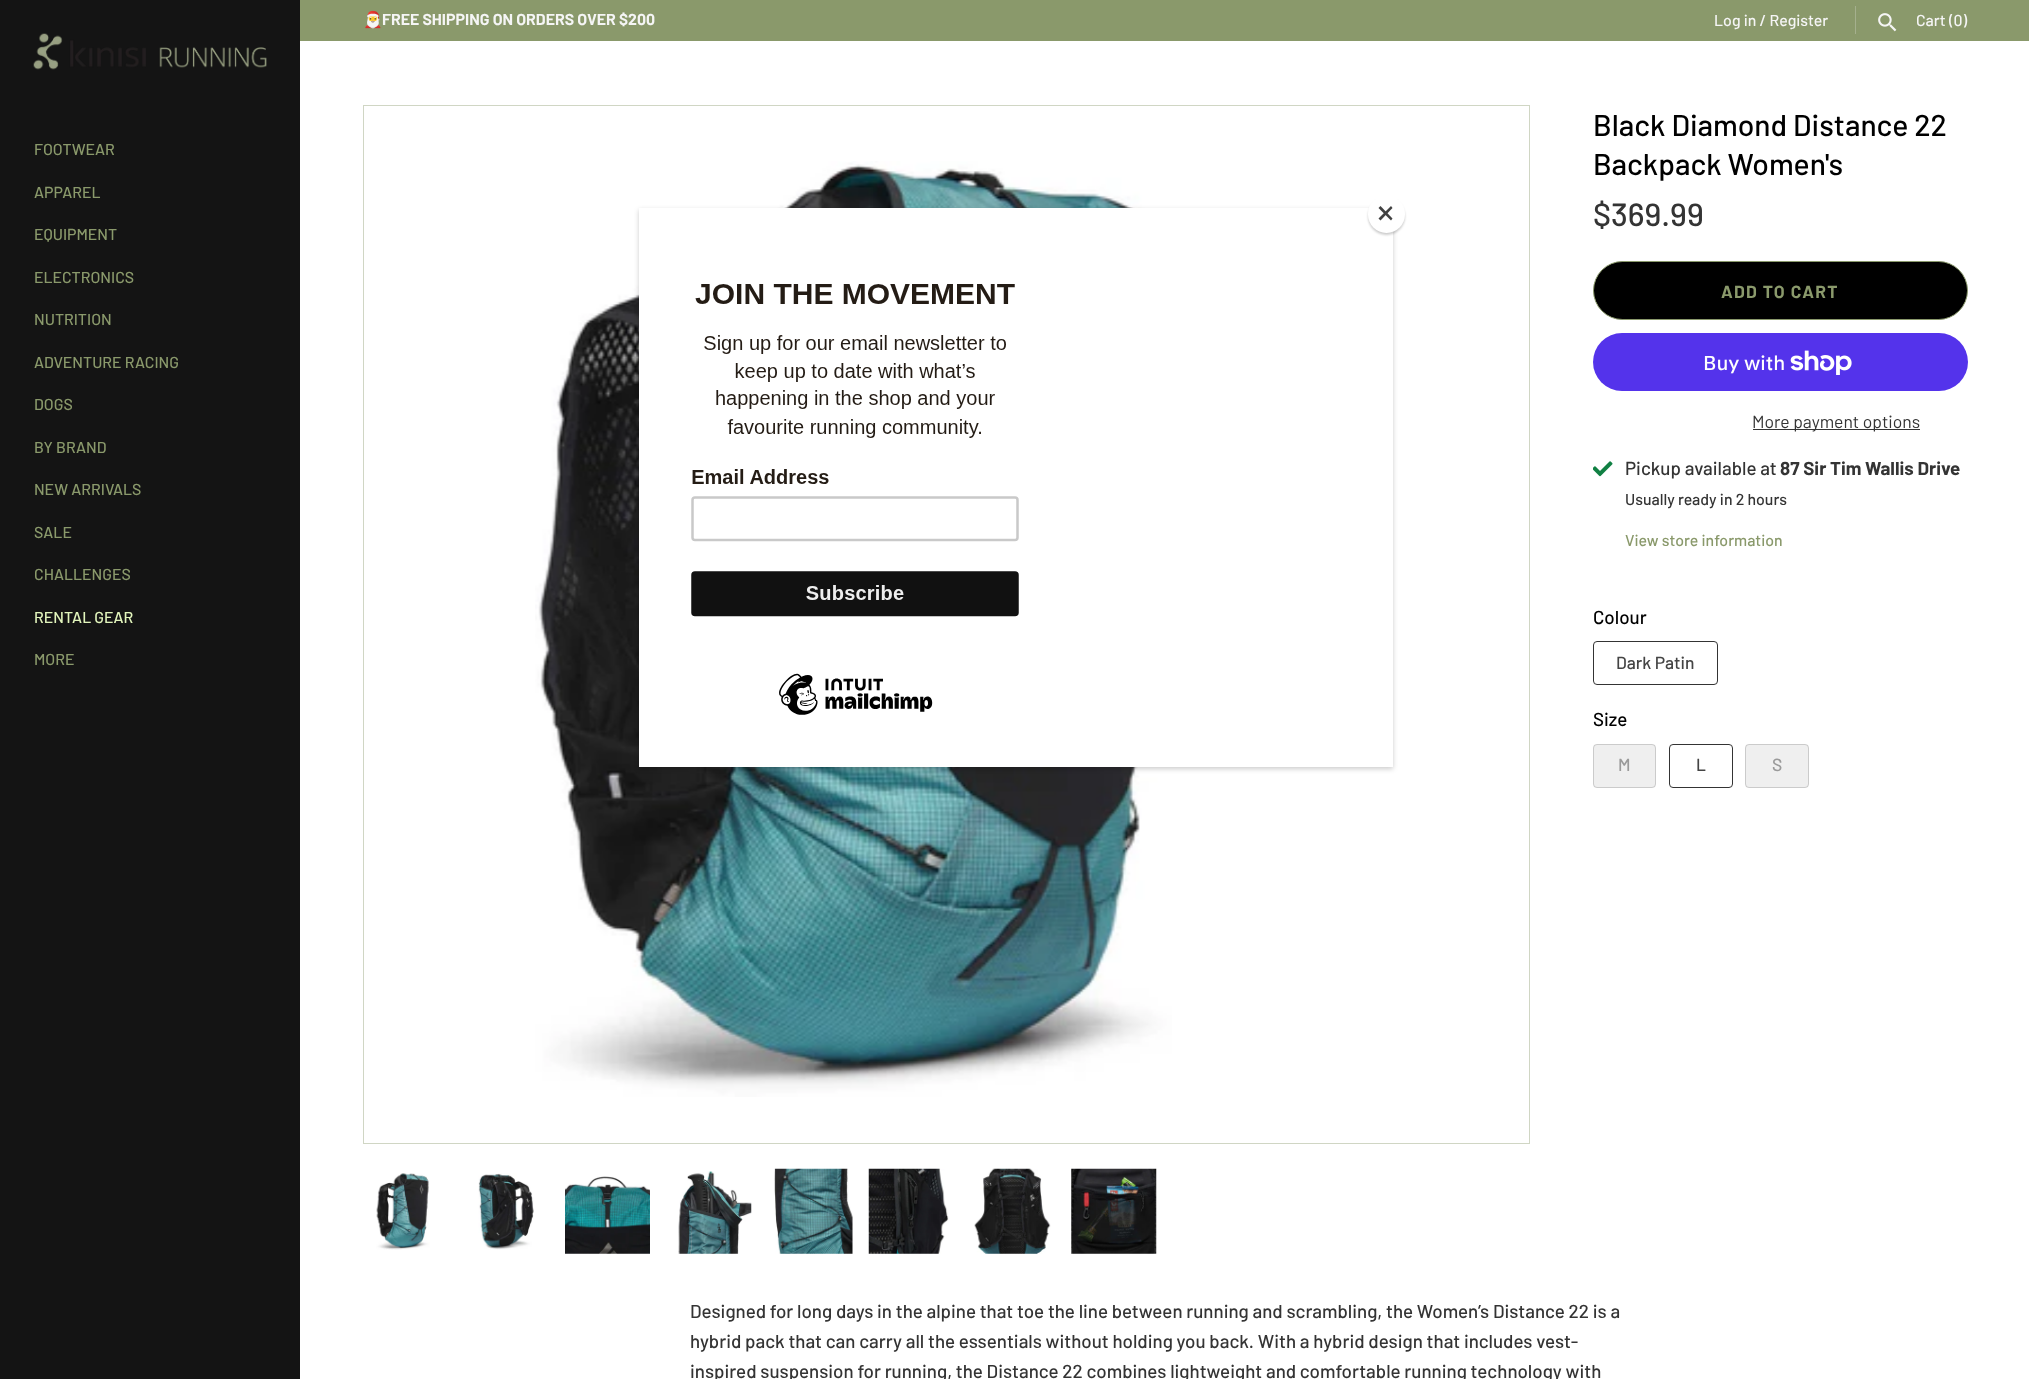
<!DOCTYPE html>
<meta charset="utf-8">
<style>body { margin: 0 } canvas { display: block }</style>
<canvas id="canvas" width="2029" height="1379"></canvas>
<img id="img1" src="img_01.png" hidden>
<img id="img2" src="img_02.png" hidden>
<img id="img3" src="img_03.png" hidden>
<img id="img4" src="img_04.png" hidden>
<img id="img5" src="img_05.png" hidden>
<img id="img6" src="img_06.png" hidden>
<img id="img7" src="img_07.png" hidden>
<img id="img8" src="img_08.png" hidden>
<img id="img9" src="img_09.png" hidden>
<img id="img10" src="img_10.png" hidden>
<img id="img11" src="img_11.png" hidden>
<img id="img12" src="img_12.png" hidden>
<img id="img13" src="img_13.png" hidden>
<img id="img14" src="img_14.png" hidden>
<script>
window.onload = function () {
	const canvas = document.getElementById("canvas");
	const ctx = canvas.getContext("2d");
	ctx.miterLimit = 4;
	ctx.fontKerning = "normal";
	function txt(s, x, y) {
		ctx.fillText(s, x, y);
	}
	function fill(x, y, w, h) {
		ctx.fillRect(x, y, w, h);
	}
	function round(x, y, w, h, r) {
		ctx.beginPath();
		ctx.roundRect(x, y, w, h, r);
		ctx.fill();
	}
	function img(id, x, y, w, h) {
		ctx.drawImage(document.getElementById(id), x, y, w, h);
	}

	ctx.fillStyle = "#FFFFFF";
	fill(0, 0, 2029, 1379);
	ctx.fillStyle = "#8A996B";
	fill(300, 0, 1729, 41);
	ctx.fillStyle = "#A5B08E";
	fill(1855, 6, 1, 28);
	img("img1", 1878, 13, 19, 19);
	ctx.fillStyle = "#141414";
	fill(0, 0, 300, 1379);
	img("img2", 33, 33, 234, 37);
	ctx.strokeStyle = "#D0D6C4";
	ctx.strokeRect(363.5, 105.5, 1166, 1038);
	img("img3", 535, 161, 637, 936);
	img("img4", 376, 1173, 54, 77);
	img("img5", 478, 1173, 56, 77);
	img("img6", 565, 1176, 85, 78);
	img("img7", 678, 1171, 74, 83);
	img("img8", 774, 1168, 79, 86);
	img("img9", 868, 1168, 81, 86);
	img("img10", 974, 1168, 77, 86);
	img("img11", 1071, 1168, 86, 86);
	ctx.fillStyle = "#000000";
	ctx.beginPath();
	ctx.roundRect(1593.5, 261.5, 374, 58, 29);
	ctx.fill();
	ctx.strokeStyle = "#8A996B";
	ctx.stroke();
	ctx.fillStyle = "#5433EB";
	round(1593, 333, 375, 58, 29);
	img("img12", 1790, 350, 62, 25);
	ctx.fillStyle = "#343434";
	fill(1753, 429, 167, 1);
	img("img13", 1593, 461, 20, 16);
	ctx.beginPath();
	ctx.roundRect(1593.5, 641.5, 124, 43, 3.5);
	ctx.strokeStyle = "#343434";
	ctx.stroke();
	ctx.fillStyle = "#EFEFEF";
	round(1593, 744, 63, 44, 4);
	ctx.beginPath();
	ctx.roundRect(1593.5, 744.5, 62, 43, 3.5);
	ctx.strokeStyle = "rgba(0, 0, 0, 0.15)";
	ctx.stroke();
	ctx.beginPath();
	ctx.roundRect(1669.5, 744.5, 63, 43, 3.5);
	ctx.strokeStyle = "#343434";
	ctx.stroke();
	round(1745, 744, 64, 44, 4);
	ctx.beginPath();
	ctx.roundRect(1745.5, 744.5, 63, 43, 3.5);
	ctx.strokeStyle = "rgba(0, 0, 0, 0.15)";
	ctx.stroke();
	ctx.fillStyle = "rgba(0, 0, 0, 0.2)";
	ctx.filter = "blur(2.5px)";
	ctx.beginPath();
	ctx.rect(639, 210, 754, 559);
	ctx.fill();
	ctx.filter = "none";
	img("img14", 639, 208, 754, 559);
	ctx.filter = "blur(1px)";
	ctx.beginPath();
	ctx.roundRect(1368, 198, 37, 37, 18.5);
	ctx.fill();
	ctx.filter = "none";
	ctx.fillStyle = "#FFFFFF";
	round(1368, 195, 37, 38, 18.5);
	ctx.fillStyle = "#414141";
	ctx.beginPath();
	ctx.moveTo(1391, 206);
	ctx.lineTo(1392.5, 208);
	ctx.lineTo(1380.5, 220.5);
	ctx.lineTo(1378.5, 218.5);
	ctx.closePath();
	ctx.fill();
	ctx.beginPath();
	ctx.moveTo(1378.5, 208);
	ctx.lineTo(1380.5, 206);
	ctx.lineTo(1392.5, 218.5);
	ctx.lineTo(1391, 220.5);
	ctx.closePath();
	ctx.fill();
	ctx.font = "bold 15.9px Noto Color Emoji";
	ctx.fillStyle = "#F5F5F5";
	txt("🎅", 363, 25);
	ctx.font = "bold 15.9px Barlow";
	txt("FREE SHIPPING ON ORDERS OVER $200", 382, 25);
	ctx.font = "500 15.9px Barlow";
	txt("Log in / Register", 1714, 26);
	txt("Cart (0)", 1916, 26);
	ctx.fillStyle = "#8A996B";
	txt("FOOTWEAR", 34, 155);
	txt("APPAREL", 34, 198);
	txt("EQUIPMENT", 34, 240);
	txt("ELECTRONICS", 34, 283);
	txt("NUTRITION", 34, 325);
	txt("ADVENTURE RACING", 34, 368);
	txt("DOGS", 34, 410);
	txt("BY BRAND", 34, 453);
	txt("NEW ARRIVALS", 34, 495);
	txt("SALE", 34, 538);
	txt("CHALLENGES", 34, 580);
	ctx.fillStyle = "#E2F5BC";
	txt("RENTAL GEAR", 34, 623);
	ctx.fillStyle = "#8A996B";
	txt("MORE", 34, 665);
	ctx.font = "500 30px Barlow";
	ctx.fillStyle = "#000000";
	txt("Black Diamond Distance 22", 1593, 136);
	txt("Backpack Women's", 1593, 175);
	ctx.font = "500 32px Barlow";
	ctx.fillStyle = "#343434";
	txt("$369.99", 1593, 226);
	ctx.letterSpacing = "1.25px";
	ctx.font = "bold 17.5px Barlow";
	ctx.fillStyle = "#8A996B";
	txt("ADD TO CART", 1721, 298);
	ctx.letterSpacing = "0px";
	ctx.font = "500 20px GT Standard";
	ctx.fillStyle = "#FFFFFF";
	txt("Buy with", 1703, 370);
	ctx.font = "17.5px Barlow";
	ctx.fillStyle = "#343434";
	txt("More payment options", 1752, 428);
	ctx.font = "500 18.75px Barlow";
	txt("Pickup available at", 1625, 475);
	ctx.font = "bold 18.75px Barlow";
	txt("87 Sir Tim Wallis Drive", 1780, 475);
	ctx.font = "500 15.9px Barlow";
	txt("Usually ready in 2 hours", 1625, 505);
	ctx.fillStyle = "#8A996B";
	txt("View store information", 1625, 546);
	ctx.font = "500 18.75px Barlow";
	ctx.fillStyle = "#000000";
	txt("Colour", 1593, 624);
	ctx.font = "500 17.5px Barlow";
	ctx.fillStyle = "#444444";
	txt("Dark Patin", 1616, 669);
	ctx.font = "500 18.75px Barlow";
	ctx.fillStyle = "#000000";
	txt("Size", 1593, 726);
	ctx.font = "500 17.5px Barlow";
	ctx.fillStyle = "#9A9A9A";
	txt("M", 1618, 771);
	ctx.fillStyle = "#444444";
	txt("L", 1696, 771);
	ctx.fillStyle = "#9A9A9A";
	txt("S", 1772, 771);
	ctx.font = "500 18.75px Barlow";
	ctx.fillStyle = "#343434";
	txt("Designed for long days in the alpine that toe the line between running and scrambling, the Women’s Distance 22 is a", 690, 1318);
	txt("hybrid pack that can carry all the essentials without holding you back. With a hybrid design that includes vest-", 690, 1348);
	txt("inspired suspension for running, the Distance 22 combines lightweight and comfortable running technology with", 690, 1378);
};
</script>
